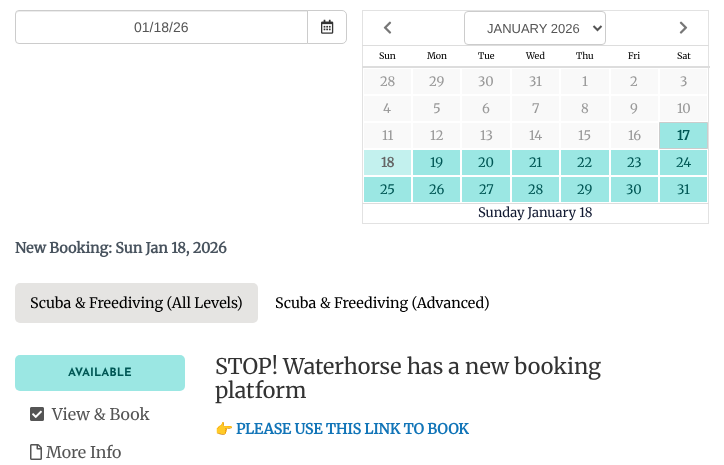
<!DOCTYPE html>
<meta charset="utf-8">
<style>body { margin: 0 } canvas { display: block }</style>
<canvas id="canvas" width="724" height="465"></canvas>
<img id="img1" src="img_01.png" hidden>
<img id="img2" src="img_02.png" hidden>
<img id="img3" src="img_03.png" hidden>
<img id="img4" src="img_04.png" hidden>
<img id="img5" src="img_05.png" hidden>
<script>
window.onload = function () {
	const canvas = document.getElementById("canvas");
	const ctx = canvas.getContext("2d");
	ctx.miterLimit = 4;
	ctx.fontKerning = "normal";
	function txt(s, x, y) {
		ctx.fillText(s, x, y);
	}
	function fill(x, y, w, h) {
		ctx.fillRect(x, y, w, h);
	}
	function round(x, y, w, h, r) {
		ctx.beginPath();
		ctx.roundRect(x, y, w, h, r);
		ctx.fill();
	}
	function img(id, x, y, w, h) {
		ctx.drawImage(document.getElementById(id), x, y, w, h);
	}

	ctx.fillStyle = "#FFFFFF";
	fill(0, 0, 724, 465);
	ctx.fillStyle = "#ECECEC";
	ctx.beginPath();
	ctx.moveTo(19, 12);
	ctx.lineTo(307, 12);
	ctx.lineTo(307, 11);
	ctx.lineTo(19, 11);
	ctx.bezierCurveTo(17, 11, 16, 13, 16, 15);
	ctx.bezierCurveTo(16, 13, 17, 12, 19, 12);
	ctx.closePath();
	ctx.fill();
	ctx.beginPath();
	ctx.roundRect(15.5, 10.5, 292, 33, [3.5, 0, 0, 3.5]);
	ctx.strokeStyle = "#CCCCCC";
	ctx.stroke();
	ctx.fillStyle = "#FFFFFF";
	ctx.beginPath();
	ctx.roundRect(307.5, 10.5, 39, 33, [0, 4.5, 4.5, 0]);
	ctx.fill();
	ctx.stroke();
	img("img1", 321, 19, 13, 15);
	ctx.fillStyle = "#E2E2E2";
	fill(362, 10, 347, 1);
	fill(708, 10, 1, 214);
	fill(362, 223, 347, 1);
	fill(362, 10, 1, 214);
	img("img2", 383, 21, 9, 13);
	ctx.beginPath();
	ctx.roundRect(464.5, 11.5, 141, 33, 3.5);
	ctx.stroke();
	ctx.beginPath();
	ctx.moveTo(593.5, 26);
	ctx.lineTo(597.5, 30);
	ctx.lineTo(601.5, 26);
	ctx.strokeStyle = "#555555";
	ctx.lineWidth = 2;
	ctx.stroke();
	img("img3", 679, 21, 9, 13);
	ctx.fillStyle = "#DDDDDD";
	fill(362, 45, 347, 1);
	fill(362, 66, 348, 2);
	ctx.fillStyle = "#F9F9F9";
	fill(364, 69, 47, 25);
	fill(413, 69, 47, 25);
	fill(462, 69, 48, 25);
	fill(512, 69, 47, 25);
	fill(561, 69, 48, 25);
	fill(611, 69, 47, 25);
	fill(660, 69, 47, 25);
	fill(364, 96, 47, 25);
	fill(413, 96, 47, 25);
	fill(462, 96, 48, 25);
	fill(512, 96, 47, 25);
	fill(561, 96, 48, 25);
	fill(611, 96, 47, 25);
	fill(660, 96, 47, 25);
	fill(364, 123, 47, 25);
	fill(413, 123, 47, 25);
	fill(462, 123, 48, 25);
	fill(512, 123, 47, 25);
	fill(561, 123, 48, 25);
	fill(611, 123, 47, 25);
	ctx.fillStyle = "#9BE7E3";
	ctx.beginPath();
	ctx.rect(659.5, 122.5, 48, 26);
	ctx.fill();
	ctx.strokeStyle = "#CCCCCC";
	ctx.lineWidth = 1;
	ctx.stroke();
	ctx.fillStyle = "#C3F1EE";
	fill(364, 150, 47, 25);
	ctx.fillStyle = "#9BE7E3";
	fill(413, 150, 47, 25);
	fill(462, 150, 48, 25);
	fill(512, 150, 47, 25);
	fill(561, 150, 48, 25);
	fill(611, 150, 47, 25);
	fill(660, 150, 47, 25);
	fill(364, 177, 47, 25);
	fill(413, 177, 47, 25);
	fill(462, 177, 48, 25);
	fill(512, 177, 47, 25);
	fill(561, 177, 48, 25);
	fill(611, 177, 47, 25);
	fill(660, 177, 47, 25);
	ctx.fillStyle = "#DDDDDD";
	fill(362, 203, 347, 1);
	ctx.fillStyle = "#E5E4E2";
	round(15, 283, 243, 40, 5);
	ctx.fillStyle = "#9BE7E3";
	round(15, 355, 170, 36, 5);
	img("img4", 30, 407, 14, 14);
	img("img5", 30, 444, 12, 16);
	ctx.font = "14px Liberation Sans";
	ctx.fillStyle = "#555555";
	txt("01/18/26", 134, 32);
	ctx.font = "13px Liberation Sans";
	txt("JANUARY 2026", 487, 33);
	ctx.font = "300 9px Merriweather";
	ctx.fillStyle = "#000000";
	txt("Sun", 379, 59);
	txt("Mon", 427, 59);
	txt("Tue", 478, 59);
	txt("Wed", 526, 59);
	txt("Thu", 576, 59);
	txt("Fri", 628, 59);
	txt("Sat", 677, 59);
	ctx.font = "300 13px Merriweather";
	ctx.fillStyle = "#999999";
	txt("28", 380, 86);
	txt("29", 429, 86);
	txt("30", 478, 86);
	txt("31", 529, 86);
	txt("1", 582, 86);
	txt("2", 630, 86);
	txt("3", 680, 86);
	txt("4", 383, 113);
	txt("5", 433, 113);
	txt("6", 482, 113);
	txt("7", 532, 113);
	txt("8", 581, 113);
	txt("9", 630, 113);
	txt("10", 677, 113);
	txt("11", 382, 140);
	txt("12", 430, 140);
	txt("13", 480, 140);
	txt("14", 529, 140);
	txt("15", 578, 140);
	txt("16", 628, 140);
	ctx.font = "bold 13px Merriweather";
	ctx.fillStyle = "#005755";
	txt("17", 677, 140);
	ctx.fillStyle = "#666666";
	txt("18", 381, 167);
	ctx.font = "300 13px Merriweather";
	ctx.fillStyle = "#005755";
	txt("19", 430, 167);
	txt("20", 478, 167);
	txt("21", 529, 167);
	txt("22", 577, 167);
	txt("23", 627, 167);
	txt("24", 676, 167);
	txt("25", 380, 194);
	txt("26", 429, 194);
	txt("27", 479, 194);
	txt("28", 528, 194);
	txt("29", 577, 194);
	txt("30", 626, 194);
	txt("31", 677, 194);
	ctx.fillStyle = "#111931";
	txt("Sunday January 18", 478, 217);
	ctx.font = "bold 14.4px Merriweather";
	ctx.fillStyle = "#48535E";
	txt("New Booking: Sun Jan 18, 2026", 15, 253);
	ctx.font = "300 14.4px Merriweather";
	ctx.fillStyle = "#000000";
	txt("Scuba & Freediving (All Levels)", 30, 308);
	txt("Scuba & Freediving (Advanced)", 275, 308);
	ctx.font = "bold 11.5px Josefin Sans";
	ctx.fillStyle = "#005755";
	txt("AVAILABLE", 68, 376);
	ctx.font = "300 16px Merriweather";
	ctx.fillStyle = "#555555";
	txt("View & Book", 52, 420);
	txt("More Info", 46, 458);
	ctx.save();
	ctx.beginPath();
	ctx.rect(215, 355, 453, 93);
	ctx.clip();
	ctx.font = "300 21.6px Merriweather";
	ctx.fillStyle = "#333333";
	txt("STOP! Waterhorse has a new booking", 215, 374);
	ctx.restore();
	ctx.font = "300 21.6px Merriweather";
	ctx.fillStyle = "#333333";
	txt("platform", 215, 398);
	ctx.font = "bold 14.4px Noto Color Emoji";
	ctx.fillStyle = "#48535E";
	txt("👉", 215, 434);
	ctx.font = "bold 14.4px Merriweather";
	ctx.fillStyle = "#1275B8";
	txt("PLEASE USE THIS LINK TO BOOK", 236, 434);
};
</script>
